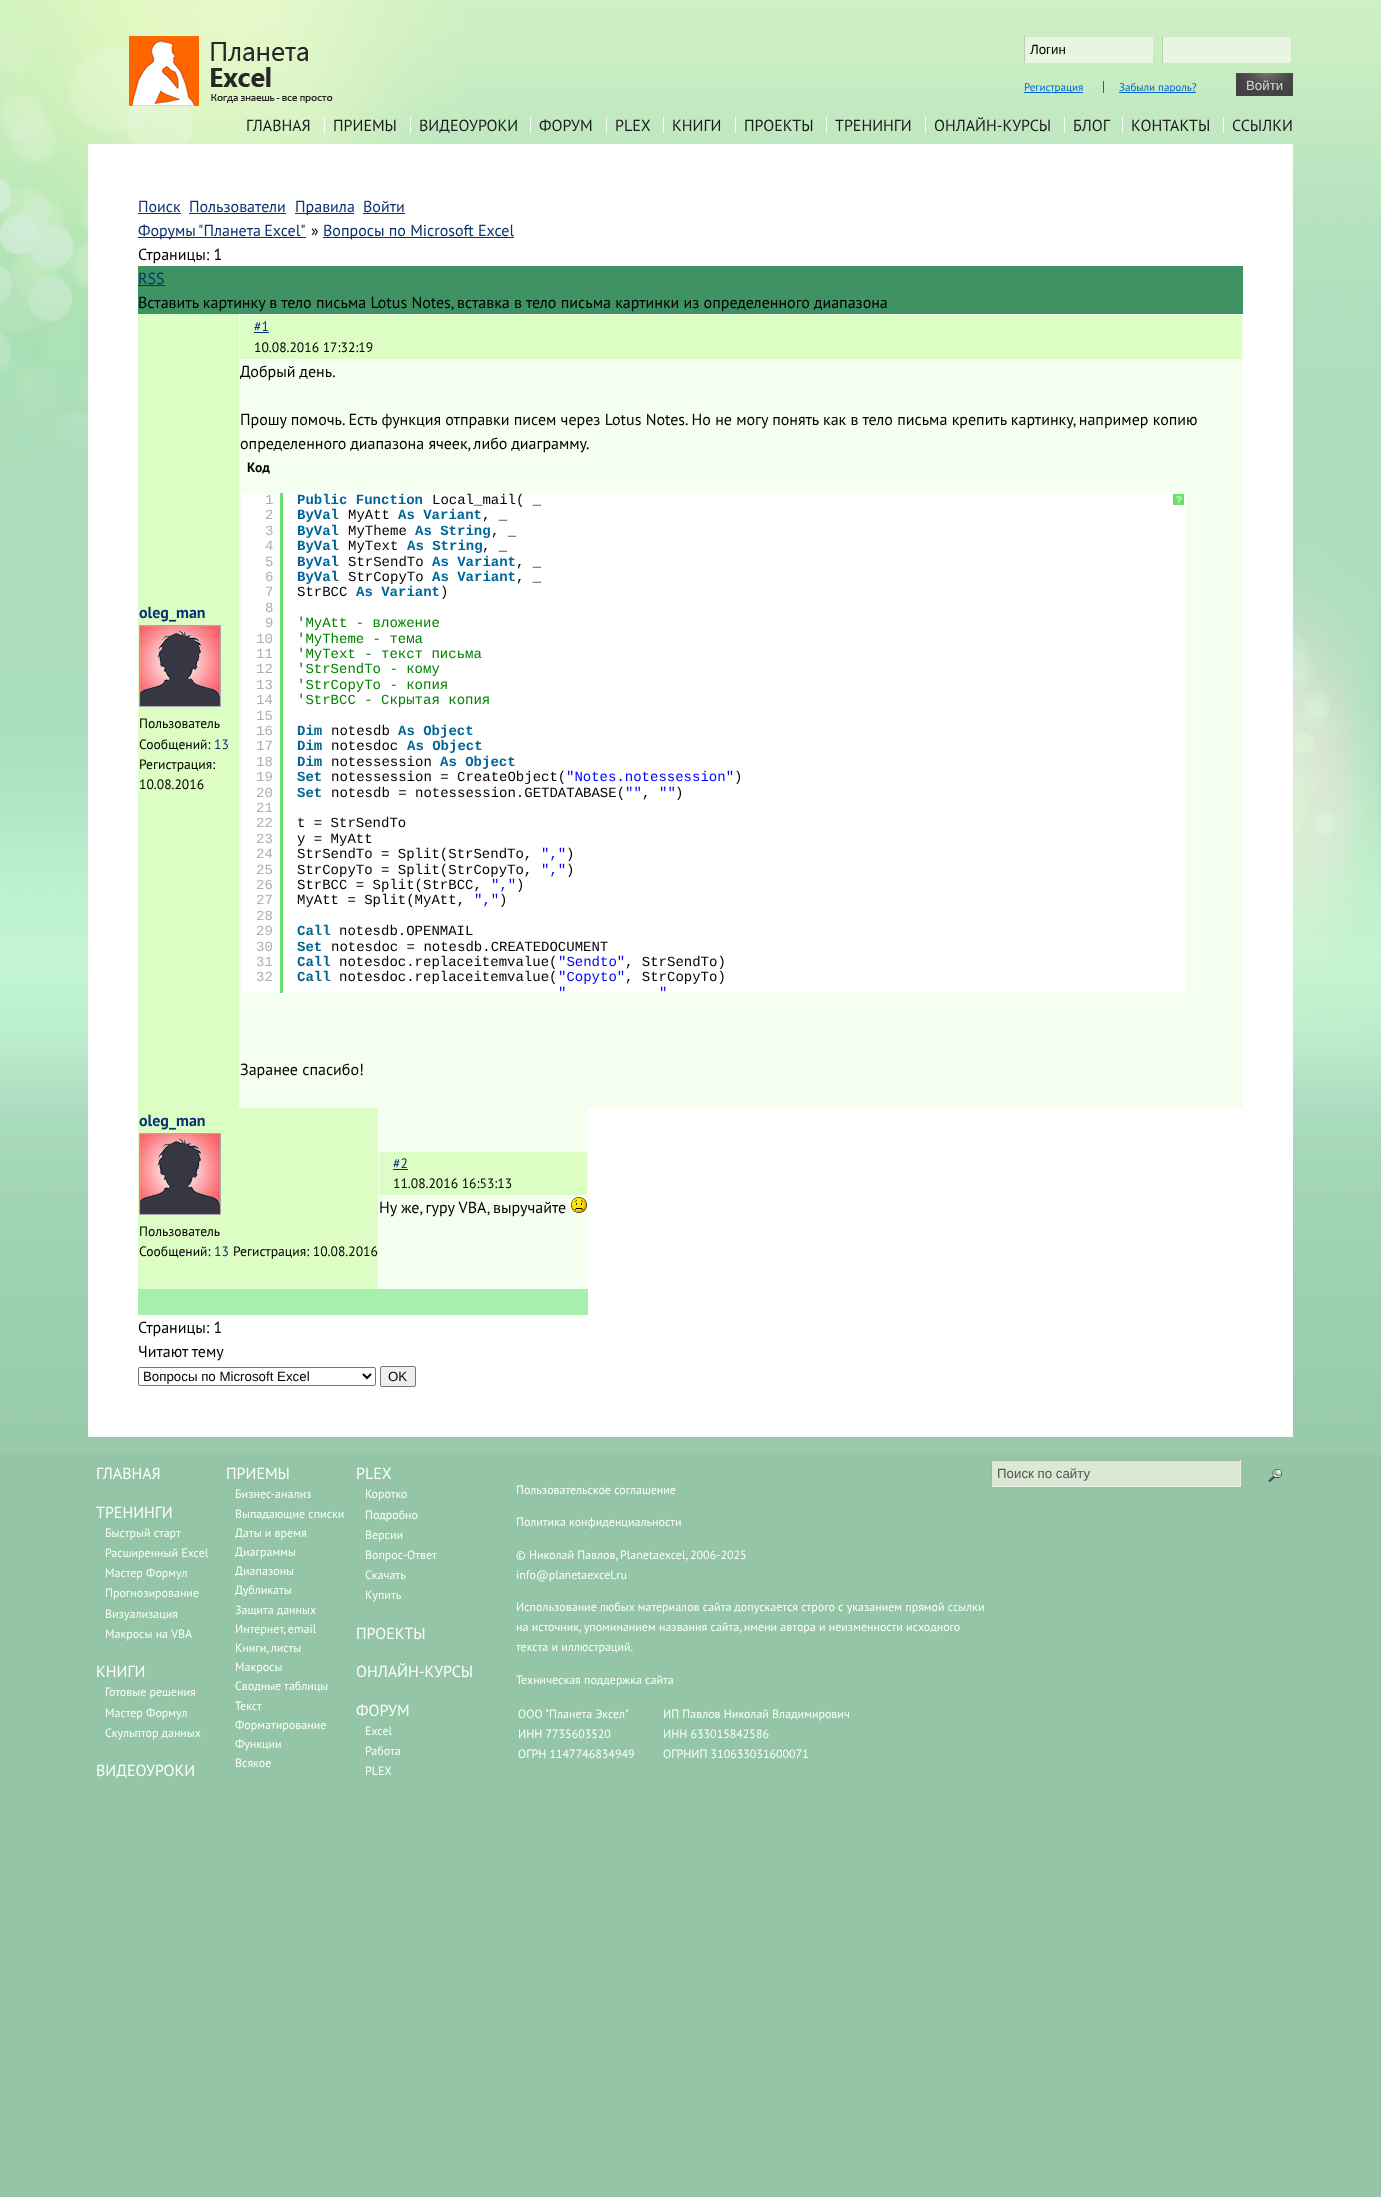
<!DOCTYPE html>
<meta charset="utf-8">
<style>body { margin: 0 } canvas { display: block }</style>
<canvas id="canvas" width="1381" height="2197"></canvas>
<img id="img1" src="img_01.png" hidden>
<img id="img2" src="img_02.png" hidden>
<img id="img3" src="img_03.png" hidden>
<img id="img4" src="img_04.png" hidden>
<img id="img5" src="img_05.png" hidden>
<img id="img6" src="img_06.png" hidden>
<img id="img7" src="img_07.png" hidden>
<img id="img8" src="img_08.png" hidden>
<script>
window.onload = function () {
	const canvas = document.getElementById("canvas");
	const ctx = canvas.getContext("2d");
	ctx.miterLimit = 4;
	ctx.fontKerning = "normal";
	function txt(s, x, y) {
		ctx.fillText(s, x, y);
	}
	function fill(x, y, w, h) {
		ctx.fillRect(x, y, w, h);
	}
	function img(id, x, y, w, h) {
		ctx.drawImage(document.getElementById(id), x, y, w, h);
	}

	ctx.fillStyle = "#94C5A7";
	fill(0, 0, 1381, 2197);
	img("img1", 0, 0, 1381, 1454);
	img("img2", 0, 0, 462, 488);
	img("img3", 1293, 534, 85, 519);
	img("img4", 129, 36, 204, 70);
	ctx.fillStyle = "#E8F5E1";
	fill(1025, 37, 128, 26);
	ctx.fillStyle = "#D4E5CD";
	fill(1024, 36, 129, 1);
	ctx.fillStyle = "#B8CFB2";
	fill(1024, 36, 1, 27);
	ctx.fillStyle = "#E8F5E1";
	fill(1163, 37, 128, 26);
	ctx.fillStyle = "#D4E5CD";
	fill(1162, 36, 129, 1);
	ctx.fillStyle = "#B8CFB2";
	fill(1162, 36, 1, 27);
	ctx.fillStyle = "#0067D1";
	fill(1024, 92, 59, 1);
	fill(1103, 81, 1, 12);
	fill(1119, 92, 77, 1);
	img("img5", 1236, 73, 57, 23);
	ctx.fillStyle = "#FFFFFF";
	fill(324, 117, 1, 16);
	fill(410, 117, 1, 16);
	fill(530, 117, 1, 16);
	fill(606, 117, 1, 16);
	fill(663, 117, 1, 16);
	fill(735, 117, 1, 16);
	fill(826, 117, 1, 16);
	fill(925, 117, 1, 16);
	fill(1064, 117, 1, 16);
	fill(1122, 117, 1, 16);
	fill(1223, 117, 1, 16);
	fill(88, 144, 1205, 1293);
	ctx.fillStyle = "#093270";
	fill(138, 213, 43, 1);
	fill(189, 213, 97, 1);
	fill(295, 213, 59, 1);
	fill(363, 213, 42, 1);
	fill(138, 237, 168, 1);
	fill(323, 237, 191, 1);
	ctx.fillStyle = "#3F9262";
	fill(138, 266, 1105, 48);
	ctx.fillStyle = "#093270";
	fill(138, 285, 27, 1);
	ctx.fillStyle = "#DCFDC3";
	fill(138, 314, 101, 794);
	ctx.strokeStyle = "#A9A9A9";
	ctx.strokeRect(139.5, 625.5, 81, 81);
	img("img6", 140, 626, 80, 80);
	ctx.fillStyle = "#F5FFEF";
	fill(239, 314, 1004, 794);
	ctx.fillStyle = "#DCFDC3";
	fill(240, 315, 1002, 44);
	ctx.fillStyle = "#093270";
	fill(254, 332, 15, 1);
	ctx.fillStyle = "#FFFFFF";
	fill(242, 493, 943, 500);
	ctx.fillStyle = "#6CE26C";
	fill(280, 493, 3, 500);
	fill(1173, 494, 11, 11);
	ctx.fillStyle = "#DCFDC3";
	fill(138, 1108, 240, 181);
	ctx.strokeRect(139.5, 1133.5, 81, 81);
	img("img6", 140, 1134, 80, 80);
	ctx.fillStyle = "#F5FFEF";
	fill(378, 1108, 210, 181);
	ctx.fillStyle = "#DCFDC3";
	fill(379, 1152, 208, 43);
	ctx.fillStyle = "#093270";
	fill(393, 1169, 15, 1);
	img("img7", 571, 1197, 16, 16);
	ctx.fillStyle = "#A7EFAC";
	fill(138, 1289, 450, 26);
	ctx.beginPath();
	ctx.roundRect(138.5, 1367.5, 237, 18, 1.5);
	ctx.strokeStyle = "#767676";
	ctx.stroke();
	ctx.beginPath();
	ctx.moveTo(363, 1374);
	ctx.lineTo(367, 1378);
	ctx.lineTo(371, 1374);
	ctx.strokeStyle = "#000000";
	ctx.lineWidth = 2;
	ctx.stroke();
	ctx.fillStyle = "#EFEFEF";
	ctx.beginPath();
	ctx.roundRect(380.5, 1366.5, 35, 20, 1.5);
	ctx.fill();
	ctx.strokeStyle = "#767676";
	ctx.lineWidth = 1;
	ctx.stroke();
	ctx.fillStyle = "#DBE8D4";
	fill(992, 1461, 248, 25);
	ctx.fillStyle = "#A0B99A";
	fill(991, 1460, 250, 1);
	ctx.fillStyle = "#E9F1E5";
	fill(1240, 1460, 1, 27);
	fill(991, 1486, 250, 1);
	ctx.fillStyle = "#A0B99A";
	fill(991, 1460, 1, 27);
	img("img8", 1268, 1469, 14, 13);
	ctx.font = "13.3px Liberation Sans";
	ctx.fillStyle = "#000000";
	txt("Логин", 1030, 54);
	ctx.font = "11px PT Sans";
	ctx.fillStyle = "#0067D1";
	txt("Регистрация", 1024, 91);
	txt("Забыли пароль?", 1119, 91);
	ctx.font = "13.3px Liberation Sans";
	ctx.fillStyle = "#D8D8D8";
	txt("Войти", 1246, 90);
	ctx.font = "16px PT Sans";
	ctx.fillStyle = "#1B1B1B";
	txt("ГЛАВНАЯ", 246, 131);
	txt("ПРИЕМЫ", 333, 131);
	txt("ВИДЕОУРОКИ", 419, 131);
	txt("ФОРУМ", 539, 131);
	txt("PLEX", 615, 131);
	txt("КНИГИ", 672, 131);
	txt("ПРОЕКТЫ", 744, 131);
	txt("ТРЕНИНГИ", 835, 131);
	txt("ОНЛАЙН-КУРСЫ", 934, 131);
	txt("БЛОГ", 1073, 131);
	txt("КОНТАКТЫ", 1131, 131);
	txt("ССЫЛКИ", 1232, 131);
	ctx.fillStyle = "#093270";
	txt("Поиск", 138, 212);
	txt("Пользователи", 189, 212);
	txt("Правила", 295, 212);
	txt("Войти", 363, 212);
	ctx.wordSpacing = "-1px";
	txt("Форумы \"Планета Excel\"", 138, 236);
	ctx.wordSpacing = "0px";
	ctx.fillStyle = "#000000";
	txt("»", 311, 236);
	ctx.fillStyle = "#093270";
	txt("Вопросы по Microsoft Excel", 323, 236);
	ctx.fillStyle = "#000000";
	txt("Страницы: 1", 138, 260);
	ctx.fillStyle = "#093270";
	txt("RSS", 138, 284);
	ctx.fillStyle = "#000000";
	txt("Вставить картинку в тело письма Lotus Notes, вставка в тело письма картинки из определенного диапазона", 138, 308);
	ctx.font = "bold 16px PT Sans";
	ctx.fillStyle = "#093270";
	txt("oleg_man", 139, 618);
	ctx.font = "13.6px PT Sans";
	ctx.fillStyle = "#000000";
	txt("Пользователь", 139, 728);
	txt("Сообщений:", 139, 749);
	ctx.fillStyle = "#093270";
	txt("13", 214, 749);
	ctx.fillStyle = "#000000";
	txt("Регистрация:", 139, 769);
	txt("10.08.2016", 139, 789);
	ctx.fillStyle = "#093270";
	txt("#1", 254, 331);
	ctx.fillStyle = "#000000";
	txt("10.08.2016 17:32:19", 254, 352);
	ctx.font = "16px PT Sans";
	txt("Добрый день.", 240, 377);
	txt("Прошу помочь. Есть функция отправки писем через Lotus Notes. Но не могу понять как в тело письма крепить картинку, например копию", 240, 425);
	txt("определенного диапазона ячеек, либо диаграмму.", 240, 449);
	ctx.font = "bold 13.6px PT Sans";
	txt("Код", 247, 472);
	ctx.font = "14px Liberation Mono";
	ctx.fillStyle = "#AFAFAF";
	txt("1", 265, 504);
	txt("2", 265, 519);
	txt("3", 265, 535);
	txt("4", 265, 550);
	txt("5", 265, 566);
	txt("6", 265, 581);
	txt("7", 265, 596);
	txt("8", 265, 612);
	txt("9", 265, 627);
	txt("10", 256, 643);
	txt("11", 256, 658);
	txt("12", 256, 673);
	txt("13", 256, 689);
	txt("14", 256, 704);
	txt("15", 256, 720);
	txt("16", 256, 735);
	txt("17", 256, 750);
	txt("18", 256, 766);
	txt("19", 256, 781);
	txt("20", 256, 797);
	txt("21", 256, 812);
	txt("22", 256, 827);
	txt("23", 256, 843);
	txt("24", 256, 858);
	txt("25", 256, 874);
	txt("26", 256, 889);
	txt("27", 256, 904);
	txt("28", 256, 920);
	txt("29", 256, 935);
	txt("30", 256, 951);
	txt("31", 256, 966);
	txt("32", 256, 981);
	ctx.font = "bold 14px Liberation Mono";
	ctx.fillStyle = "#006699";
	txt("Public Function", 297, 504);
	ctx.font = "14px Liberation Mono";
	ctx.fillStyle = "#000000";
	txt("Local_mail( _", 432, 504);
	ctx.font = "bold 14px Liberation Mono";
	ctx.fillStyle = "#006699";
	txt("ByVal", 297, 519);
	ctx.font = "14px Liberation Mono";
	ctx.fillStyle = "#000000";
	txt("MyAtt", 348, 519);
	ctx.font = "bold 14px Liberation Mono";
	ctx.fillStyle = "#006699";
	txt("As Variant", 398, 519);
	ctx.font = "14px Liberation Mono";
	ctx.fillStyle = "#000000";
	txt(", _", 482, 519);
	ctx.font = "bold 14px Liberation Mono";
	ctx.fillStyle = "#006699";
	txt("ByVal", 297, 535);
	ctx.font = "14px Liberation Mono";
	ctx.fillStyle = "#000000";
	txt("MyTheme", 348, 535);
	ctx.font = "bold 14px Liberation Mono";
	ctx.fillStyle = "#006699";
	txt("As String", 415, 535);
	ctx.font = "14px Liberation Mono";
	ctx.fillStyle = "#000000";
	txt(", _", 491, 535);
	ctx.font = "bold 14px Liberation Mono";
	ctx.fillStyle = "#006699";
	txt("ByVal", 297, 550);
	ctx.font = "14px Liberation Mono";
	ctx.fillStyle = "#000000";
	txt("MyText", 348, 550);
	ctx.font = "bold 14px Liberation Mono";
	ctx.fillStyle = "#006699";
	txt("As String", 407, 550);
	ctx.font = "14px Liberation Mono";
	ctx.fillStyle = "#000000";
	txt(", _", 482, 550);
	ctx.font = "bold 14px Liberation Mono";
	ctx.fillStyle = "#006699";
	txt("ByVal", 297, 566);
	ctx.font = "14px Liberation Mono";
	ctx.fillStyle = "#000000";
	txt("StrSendTo", 348, 566);
	ctx.font = "bold 14px Liberation Mono";
	ctx.fillStyle = "#006699";
	txt("As Variant", 432, 566);
	ctx.font = "14px Liberation Mono";
	ctx.fillStyle = "#000000";
	txt(", _", 516, 566);
	ctx.font = "bold 14px Liberation Mono";
	ctx.fillStyle = "#006699";
	txt("ByVal", 297, 581);
	ctx.font = "14px Liberation Mono";
	ctx.fillStyle = "#000000";
	txt("StrCopyTo", 348, 581);
	ctx.font = "bold 14px Liberation Mono";
	ctx.fillStyle = "#006699";
	txt("As Variant", 432, 581);
	ctx.font = "14px Liberation Mono";
	ctx.fillStyle = "#000000";
	txt(", _", 516, 581);
	txt("StrBCC", 297, 596);
	ctx.font = "bold 14px Liberation Mono";
	ctx.fillStyle = "#006699";
	txt("As Variant", 356, 596);
	ctx.font = "14px Liberation Mono";
	ctx.fillStyle = "#000000";
	txt(")", 440, 596);
	ctx.fillStyle = "#008200";
	txt("'MyAtt - вложение", 297, 627);
	txt("'MyTheme - тема", 297, 643);
	txt("'MyText - текст письма", 297, 658);
	txt("'StrSendTo - кому", 297, 673);
	txt("'StrCopyTo - копия", 297, 689);
	txt("'StrBCC - Скрытая копия", 297, 704);
	ctx.font = "bold 14px Liberation Mono";
	ctx.fillStyle = "#006699";
	txt("Dim", 297, 735);
	ctx.font = "14px Liberation Mono";
	ctx.fillStyle = "#000000";
	txt("notesdb", 331, 735);
	ctx.font = "bold 14px Liberation Mono";
	ctx.fillStyle = "#006699";
	txt("As Object", 398, 735);
	txt("Dim", 297, 750);
	ctx.font = "14px Liberation Mono";
	ctx.fillStyle = "#000000";
	txt("notesdoc", 331, 750);
	ctx.font = "bold 14px Liberation Mono";
	ctx.fillStyle = "#006699";
	txt("As Object", 407, 750);
	txt("Dim", 297, 766);
	ctx.font = "14px Liberation Mono";
	ctx.fillStyle = "#000000";
	txt("notessession", 331, 766);
	ctx.font = "bold 14px Liberation Mono";
	ctx.fillStyle = "#006699";
	txt("As Object", 440, 766);
	txt("Set", 297, 781);
	ctx.font = "14px Liberation Mono";
	ctx.fillStyle = "#000000";
	txt("notessession = CreateObject(", 331, 781);
	ctx.fillStyle = "#0000FF";
	txt("\"Notes.notessession\"", 566, 781);
	ctx.fillStyle = "#000000";
	txt(")", 734, 781);
	ctx.font = "bold 14px Liberation Mono";
	ctx.fillStyle = "#006699";
	txt("Set", 297, 797);
	ctx.font = "14px Liberation Mono";
	ctx.fillStyle = "#000000";
	txt("notesdb = notessession.GETDATABASE(", 331, 797);
	ctx.fillStyle = "#0000FF";
	txt("\"\"", 625, 797);
	ctx.fillStyle = "#000000";
	txt(",", 642, 797);
	ctx.fillStyle = "#0000FF";
	txt("\"\"", 659, 797);
	ctx.fillStyle = "#000000";
	txt(")", 675, 797);
	txt("t = StrSendTo", 297, 827);
	txt("y = MyAtt", 297, 843);
	txt("StrSendTo = Split(StrSendTo,", 297, 858);
	ctx.fillStyle = "#0000FF";
	txt("\",\"", 541, 858);
	ctx.fillStyle = "#000000";
	txt(")", 566, 858);
	txt("StrCopyTo = Split(StrCopyTo,", 297, 874);
	ctx.fillStyle = "#0000FF";
	txt("\",\"", 541, 874);
	ctx.fillStyle = "#000000";
	txt(")", 566, 874);
	txt("StrBCC = Split(StrBCC,", 297, 889);
	ctx.fillStyle = "#0000FF";
	txt("\",\"", 491, 889);
	ctx.fillStyle = "#000000";
	txt(")", 516, 889);
	txt("MyAtt = Split(MyAtt,", 297, 904);
	ctx.fillStyle = "#0000FF";
	txt("\",\"", 474, 904);
	ctx.fillStyle = "#000000";
	txt(")", 499, 904);
	ctx.font = "bold 14px Liberation Mono";
	ctx.fillStyle = "#006699";
	txt("Call", 297, 935);
	ctx.font = "14px Liberation Mono";
	ctx.fillStyle = "#000000";
	txt("notesdb.OPENMAIL", 339, 935);
	ctx.font = "bold 14px Liberation Mono";
	ctx.fillStyle = "#006699";
	txt("Set", 297, 951);
	ctx.font = "14px Liberation Mono";
	ctx.fillStyle = "#000000";
	txt("notesdoc = notesdb.CREATEDOCUMENT", 331, 951);
	ctx.font = "bold 14px Liberation Mono";
	ctx.fillStyle = "#006699";
	txt("Call", 297, 966);
	ctx.font = "14px Liberation Mono";
	ctx.fillStyle = "#000000";
	txt("notesdoc.replaceitemvalue(", 339, 966);
	ctx.fillStyle = "#0000FF";
	txt("\"Sendto\"", 558, 966);
	ctx.fillStyle = "#000000";
	txt(", StrSendTo)", 625, 966);
	ctx.font = "bold 14px Liberation Mono";
	ctx.fillStyle = "#006699";
	txt("Call", 297, 981);
	ctx.font = "14px Liberation Mono";
	ctx.fillStyle = "#000000";
	txt("notesdoc.replaceitemvalue(", 339, 981);
	ctx.fillStyle = "#0000FF";
	txt("\"Copyto\"", 558, 981);
	ctx.fillStyle = "#000000";
	txt(", StrCopyTo)", 625, 981);
	ctx.fillStyle = "#0000FF";
	txt("\"", 558, 997);
	txt("\"", 659, 997);
	ctx.font = "10px Liberation Mono";
	ctx.fillStyle = "#FCFFFC";
	txt("?", 1176, 503);
	ctx.font = "16px PT Sans";
	ctx.fillStyle = "#000000";
	txt("Заранее спасибо!", 240, 1075);
	ctx.font = "bold 16px PT Sans";
	ctx.fillStyle = "#093270";
	txt("oleg_man", 139, 1126);
	ctx.font = "13.6px PT Sans";
	ctx.fillStyle = "#000000";
	txt("Пользователь", 139, 1236);
	txt("Сообщений:", 139, 1256);
	ctx.fillStyle = "#093270";
	txt("13", 214, 1256);
	ctx.fillStyle = "#000000";
	txt("Регистрация: 10.08.2016", 233, 1256);
	ctx.fillStyle = "#093270";
	txt("#2", 393, 1168);
	ctx.fillStyle = "#000000";
	txt("11.08.2016 16:53:13", 393, 1188);
	ctx.font = "16px PT Sans";
	txt("Ну же, гуру VBA, выручайте", 379, 1213);
	txt("Страницы: 1", 138, 1333);
	txt("Читают тему", 138, 1357);
	ctx.font = "13.3px Liberation Sans";
	txt("Вопросы по Microsoft Excel", 143, 1381);
	txt("OK", 388, 1381);
	ctx.font = "16px PT Sans";
	ctx.fillStyle = "#FCFFFC";
	txt("ГЛАВНАЯ", 96, 1479);
	txt("ТРЕНИНГИ", 96, 1518);
	ctx.font = "12px PT Sans";
	txt("Быстрый старт", 105, 1537);
	txt("Расширенный Excel", 105, 1557);
	txt("Мастер Формул", 105, 1577);
	txt("Прогнозирование", 105, 1597);
	txt("Визуализация", 105, 1618);
	txt("Макросы на VBA", 105, 1638);
	ctx.font = "16px PT Sans";
	txt("КНИГИ", 96, 1677);
	ctx.font = "12px PT Sans";
	txt("Готовые решения", 105, 1696);
	txt("Мастер Формул", 105, 1717);
	txt("Скульптор данных", 105, 1737);
	ctx.font = "16px PT Sans";
	txt("ВИДЕОУРОКИ", 96, 1776);
	txt("ПРИЕМЫ", 226, 1479);
	ctx.font = "12px PT Sans";
	txt("Бизнес-анализ", 235, 1498);
	txt("Выпадающие списки", 235, 1518);
	txt("Даты и время", 235, 1537);
	txt("Диаграммы", 235, 1556);
	txt("Диапазоны", 235, 1575);
	txt("Дубликаты", 235, 1594);
	txt("Защита данных", 235, 1614);
	txt("Интернет, email", 235, 1633);
	txt("Книги, листы", 235, 1652);
	txt("Макросы", 235, 1671);
	txt("Сводные таблицы", 235, 1690);
	txt("Текст", 235, 1710);
	txt("Форматирование", 235, 1729);
	txt("Функции", 235, 1748);
	txt("Всякое", 235, 1767);
	ctx.font = "16px PT Sans";
	txt("PLEX", 356, 1479);
	ctx.font = "12px PT Sans";
	txt("Коротко", 365, 1498);
	txt("Подробно", 365, 1519);
	txt("Версии", 365, 1539);
	txt("Вопрос-Ответ", 365, 1559);
	txt("Скачать", 365, 1579);
	txt("Купить", 365, 1599);
	ctx.font = "16px PT Sans";
	txt("ПРОЕКТЫ", 356, 1639);
	txt("ОНЛАЙН-КУРСЫ", 356, 1677);
	txt("ФОРУМ", 356, 1716);
	ctx.font = "12px PT Sans";
	txt("Excel", 365, 1735);
	txt("Работа", 365, 1755);
	txt("PLEX", 365, 1775);
	txt("Пользовательское соглашение", 516, 1494);
	txt("Политика конфиденциальности", 516, 1526);
	txt("© Николай Павлов, Planetaexcel, 2006-2025", 516, 1559);
	txt("info@planetaexcel.ru", 516, 1579);
	txt("Использование любых материалов сайта допускается строго с указанием прямой ссылки", 516, 1611);
	txt("на источник, упоминанием названия сайта, имени автора и неизменности исходного", 516, 1631);
	txt("текста и иллюстраций.", 516, 1651);
	txt("Техническая поддержка сайта", 516, 1684);
	txt("ООО \"Планета Эксел\"", 518, 1718);
	txt("ИНН 7735603520", 518, 1738);
	txt("ОГРН 1147746834949", 518, 1758);
	txt("ИП Павлов Николай Владимирович", 663, 1718);
	txt("ИНН 633015842586", 663, 1738);
	txt("ОГРНИП 310633031600071", 663, 1758);
	ctx.font = "13.3px Liberation Sans";
	ctx.fillStyle = "#545454";
	txt("Поиск по сайту", 997, 1478);
};
</script>
